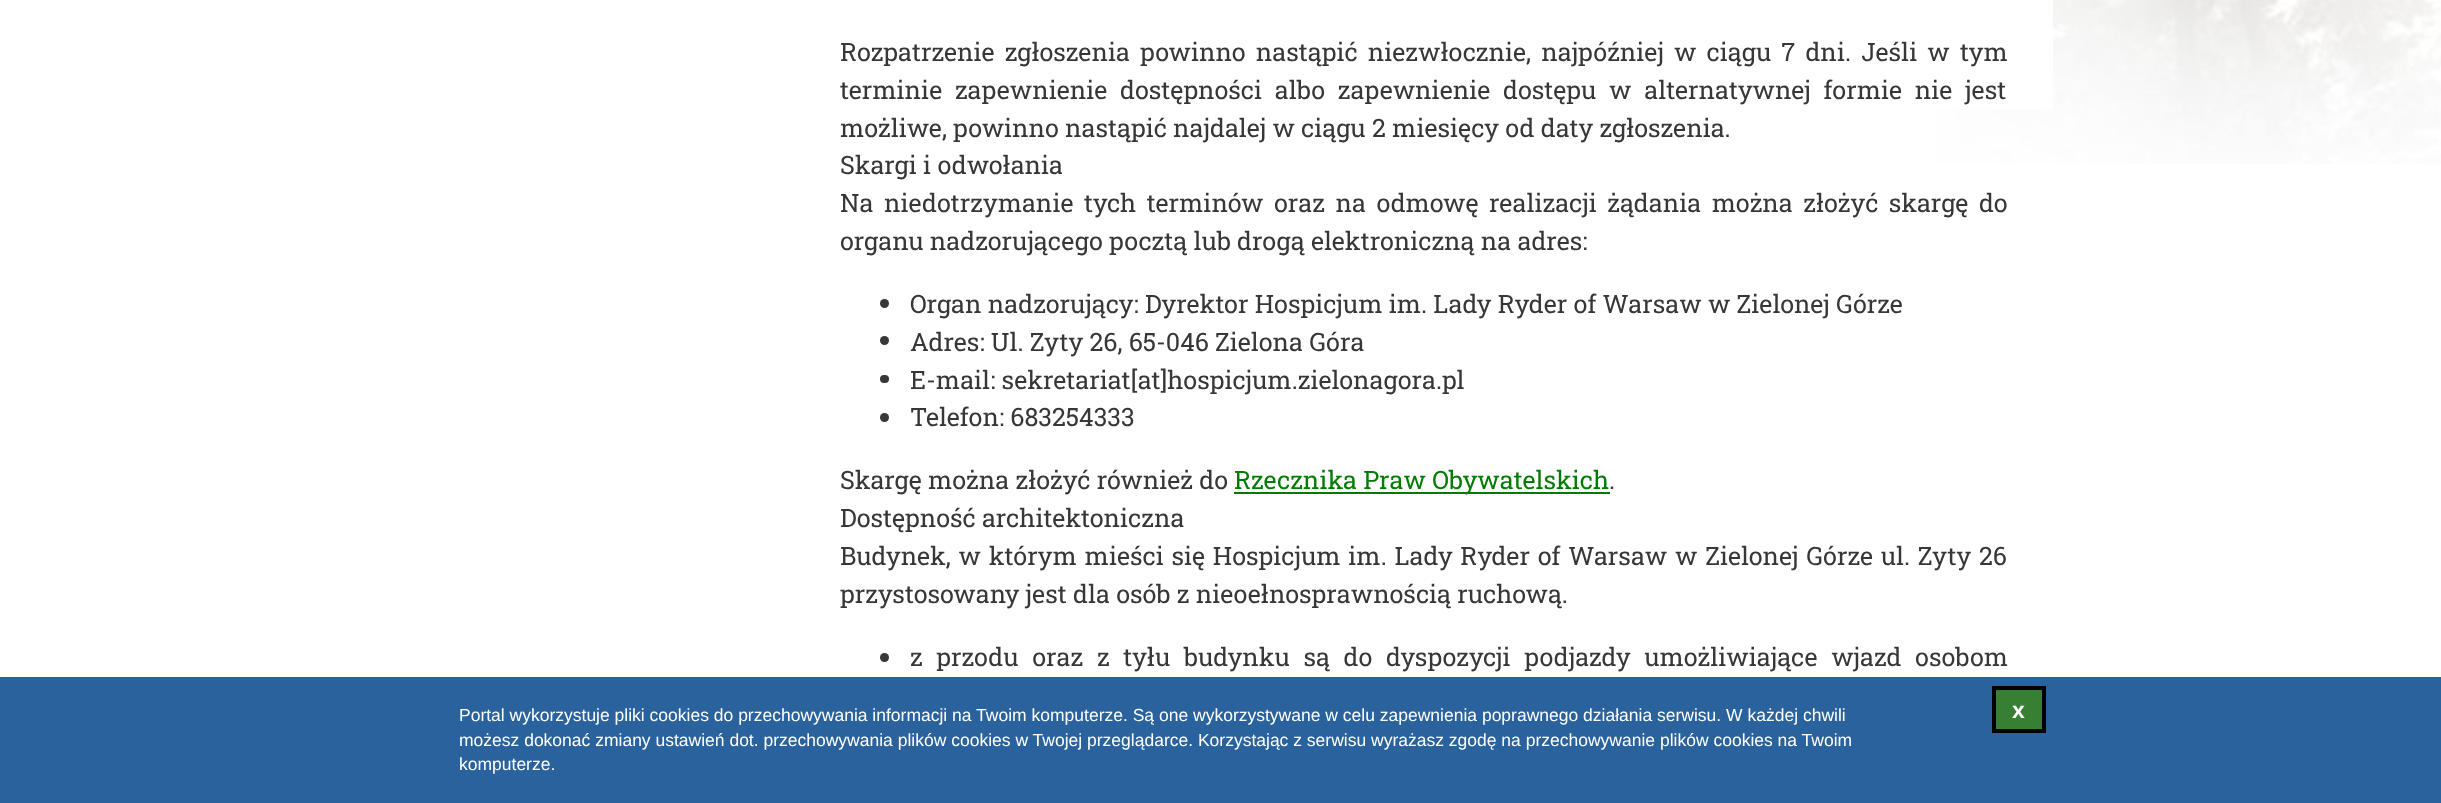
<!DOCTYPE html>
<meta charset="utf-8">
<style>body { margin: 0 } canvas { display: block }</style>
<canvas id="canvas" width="2441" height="803"></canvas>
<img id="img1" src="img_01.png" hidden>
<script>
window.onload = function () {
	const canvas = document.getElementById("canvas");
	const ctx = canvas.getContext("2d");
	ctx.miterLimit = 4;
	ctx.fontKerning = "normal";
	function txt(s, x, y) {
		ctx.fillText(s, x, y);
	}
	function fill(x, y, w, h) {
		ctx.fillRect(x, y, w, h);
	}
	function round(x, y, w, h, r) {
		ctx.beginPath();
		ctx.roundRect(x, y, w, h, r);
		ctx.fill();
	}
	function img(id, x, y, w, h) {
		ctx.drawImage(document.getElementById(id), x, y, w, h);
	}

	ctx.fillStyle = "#FFFFFF";
	fill(0, 0, 2441, 803);
	img("img1", 1934, 0, 507, 164);
	fill(1934, 0, 119, 109);
	ctx.fillStyle = "#363739";
	ctx.beginPath();
	ctx.arc(884.5, 303.5, 4.5, 0, Math.PI * 2);
	ctx.fill();
	ctx.beginPath();
	ctx.arc(884.5, 340.5, 4.5, 0, Math.PI * 2);
	ctx.fill();
	round(880, 375, 9, 8, 4);
	ctx.beginPath();
	ctx.arc(884.5, 417.5, 4.5, 0, Math.PI * 2);
	ctx.fill();
	ctx.fillStyle = "#007D00";
	fill(1234, 492, 376, 2);
	ctx.fillStyle = "#363739";
	ctx.beginPath();
	ctx.arc(884.5, 657.5, 4.5, 0, Math.PI * 2);
	ctx.fill();
	ctx.fillStyle = "#29629D";
	fill(0, 677, 2441, 126);
	ctx.fillStyle = "#377F32";
	ctx.beginPath();
	ctx.rect(1994, 688, 50, 43);
	ctx.fill();
	ctx.strokeStyle = "#000000";
	ctx.lineWidth = 4;
	ctx.stroke();
	ctx.wordSpacing = "3.9px";
	ctx.font = "25.2px Roboto Slab";
	ctx.fillStyle = "#363739";
	txt("Rozpatrzenie zgłoszenia powinno nastąpić niezwłocznie, najpóźniej w ciągu 7 dni. Jeśli w tym", 840, 61);
	ctx.wordSpacing = "6.5px";
	txt("terminie zapewnienie dostępności albo zapewnienie dostępu w alternatywnej formie nie jest", 840, 99);
	ctx.wordSpacing = "0px";
	txt("możliwe, powinno nastąpić najdalej w ciągu 2 miesięcy od daty zgłoszenia.", 840, 137);
	txt("Skargi i odwołania", 840, 174);
	ctx.wordSpacing = "4.25px";
	txt("Na niedotrzymanie tych terminów oraz na odmowę realizacji żądania można złożyć skargę do", 840, 212);
	ctx.wordSpacing = "0px";
	txt("organu nadzorującego pocztą lub drogą elektroniczną na adres:", 840, 250);
	txt("Organ nadzorujący: Dyrektor Hospicjum im. Lady Ryder of Warsaw w Zielonej Górze", 910, 313);
	txt("Adres: Ul. Zyty 26, 65-046 Zielona Góra", 910, 351);
	txt("E-mail: sekretariat[at]hospicjum.zielonagora.pl", 910, 389);
	txt("Telefon: 683254333", 910, 426);
	txt("Skargę można złożyć również do", 840, 489);
	ctx.fillStyle = "#007D00";
	txt("Rzecznika Praw Obywatelskich", 1234, 489);
	ctx.fillStyle = "#363739";
	txt(".", 1609, 489);
	txt("Dostępność architektoniczna", 840, 527);
	ctx.wordSpacing = "1.5px";
	txt("Budynek, w którym mieści się Hospicjum im. Lady Ryder of Warsaw w Zielonej Górze ul. Zyty 26", 840, 565);
	ctx.wordSpacing = "0px";
	txt("przystosowany jest dla osób z nieoełnosprawnością ruchową.", 840, 603);
	ctx.wordSpacing = "7.4px";
	txt("z przodu oraz z tyłu budynku są do dyspozycji podjazdy umożliwiające wjazd osobom", 910, 666);
	ctx.wordSpacing = "0px";
	ctx.font = "17.5px Liberation Sans";
	ctx.fillStyle = "#FFFFFF";
	txt("Portal wykorzystuje pliki cookies do przechowywania informacji na Twoim komputerze. Są one wykorzystywane w celu zapewnienia poprawnego działania serwisu. W każdej chwili", 459, 721);
	txt("możesz dokonać zmiany ustawień dot. przechowywania plików cookies w Twojej przeglądarce. Korzystając z serwisu wyrażasz zgodę na przechowywanie plików cookies na Twoim", 459, 746);
	txt("komputerze.", 459, 770);
	ctx.font = "bold 23px Liberation Sans";
	txt("x", 2012, 718);
};
</script>
